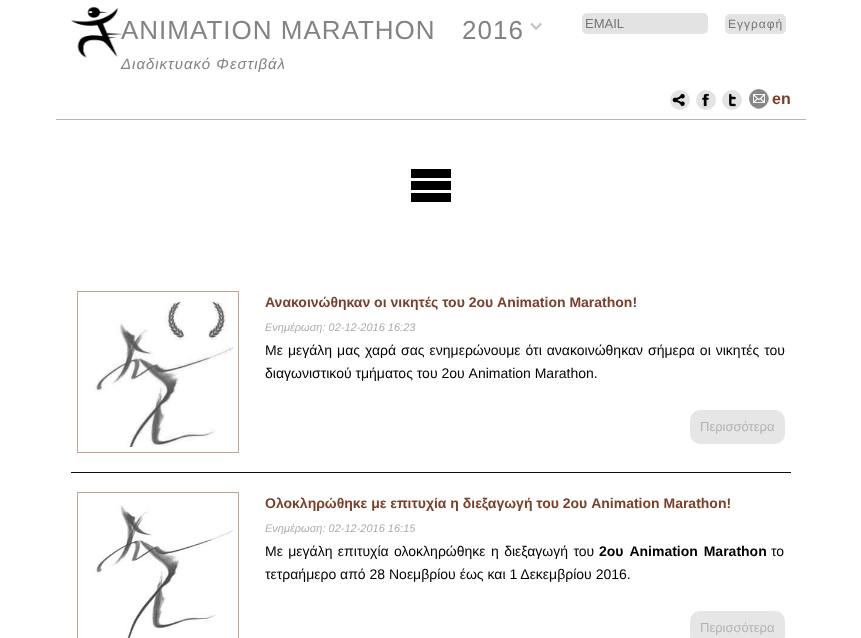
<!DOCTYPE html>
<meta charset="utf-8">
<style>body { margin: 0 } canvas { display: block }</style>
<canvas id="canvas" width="861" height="638"></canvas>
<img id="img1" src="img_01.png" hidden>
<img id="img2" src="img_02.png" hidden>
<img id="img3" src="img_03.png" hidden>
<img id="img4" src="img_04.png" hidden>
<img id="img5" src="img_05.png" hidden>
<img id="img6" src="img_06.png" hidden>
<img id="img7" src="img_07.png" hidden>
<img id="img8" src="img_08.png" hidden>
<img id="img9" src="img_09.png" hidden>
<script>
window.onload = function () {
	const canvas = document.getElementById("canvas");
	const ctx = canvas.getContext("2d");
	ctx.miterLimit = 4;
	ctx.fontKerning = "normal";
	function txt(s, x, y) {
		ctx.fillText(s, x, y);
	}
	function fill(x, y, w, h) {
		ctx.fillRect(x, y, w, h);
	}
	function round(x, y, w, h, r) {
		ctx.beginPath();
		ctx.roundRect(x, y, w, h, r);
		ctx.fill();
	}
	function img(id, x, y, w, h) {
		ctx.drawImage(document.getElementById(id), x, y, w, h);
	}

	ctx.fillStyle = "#FFFFFF";
	fill(0, 0, 861, 638);
	img("img1", 71, 6, 52, 52);
	img("img2", 530, 22, 12, 9);
	ctx.fillStyle = "#E3E3E3";
	round(582, 13, 126, 21, 5);
	round(725, 14, 61, 20, 5);
	ctx.beginPath();
	ctx.arc(680, 100, 10, 0, Math.PI * 2);
	ctx.fill();
	img("img3", 672, 93, 13, 14);
	ctx.beginPath();
	ctx.arc(706, 100, 10, 0, Math.PI * 2);
	ctx.fill();
	img("img4", 702, 93, 7, 14);
	ctx.beginPath();
	ctx.arc(732, 100, 10, 0, Math.PI * 2);
	ctx.fill();
	img("img5", 729, 93, 7, 14);
	img("img6", 749, 89, 20, 20);
	ctx.fillStyle = "#B5B5B5";
	fill(56, 119, 750, 1);
	img("img7", 411, 169, 40, 33);
	ctx.strokeStyle = "#C3A092";
	ctx.strokeRect(77.5, 291.5, 161, 161);
	img("img8", 92, 299, 141, 148);
	ctx.fillStyle = "#E6E6E6";
	round(690, 410, 95, 34, 10);
	ctx.fillStyle = "#0E0E0E";
	fill(71, 472, 720, 1);
	ctx.strokeRect(77.5, 492.5, 161, 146);
	img("img9", 93, 505, 140, 133);
	ctx.fillStyle = "#E6E6E6";
	round(690, 611, 95, 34, 10);
	ctx.letterSpacing = "1px";
	ctx.font = "26px Liberation Sans";
	ctx.fillStyle = "#838383";
	txt("ANIMATION MARATHON", 121, 39);
	txt("2016", 462, 39);
	ctx.font = "italic 15px Liberation Sans";
	txt("Διαδικτυακό Φεστιβάλ", 121, 69);
	ctx.letterSpacing = "0px";
	ctx.font = "13px Liberation Sans";
	ctx.fillStyle = "#757575";
	txt("EMAIL", 585, 28);
	ctx.letterSpacing = "1px";
	ctx.font = "12px Liberation Sans";
	txt("Εγγραφή", 728, 28);
	ctx.letterSpacing = "0px";
	ctx.font = "bold 16px Liberation Sans";
	ctx.fillStyle = "#7A402A";
	txt("en", 772, 104);
	ctx.font = "bold 14px Liberation Sans";
	txt("Ανακοινώθηκαν οι νικητές του 2ου Animation Marathon!", 265, 307);
	ctx.font = "italic 11px Liberation Sans";
	ctx.fillStyle = "#ACACAC";
	txt("Ενημέρωση: 02-12-2016 16:23", 265, 331);
	ctx.wordSpacing = "1.1px";
	ctx.font = "14px Liberation Sans";
	ctx.fillStyle = "#000000";
	txt("Με μεγάλη μας χαρά σας ενημερώνουμε ότι ανακοινώθηκαν σήμερα οι νικητές του", 265, 355);
	ctx.wordSpacing = "0px";
	txt("διαγωνιστικού τμήματος του 2ου Animation Marathon.", 265, 378);
	ctx.font = "13px Liberation Sans";
	ctx.fillStyle = "#B3B3B3";
	txt("Περισσότερα", 700, 431);
	ctx.font = "bold 14px Liberation Sans";
	ctx.fillStyle = "#7A402A";
	txt("Ολοκληρώθηκε με επιτυχία η διεξαγωγή του 2ου Animation Marathon!", 265, 508);
	ctx.font = "italic 11px Liberation Sans";
	ctx.fillStyle = "#ACACAC";
	txt("Ενημέρωση: 02-12-2016 16:15", 265, 532);
	ctx.wordSpacing = "1.5px";
	ctx.font = "14px Liberation Sans";
	ctx.fillStyle = "#000000";
	txt("Με μεγάλη επιτυχία ολοκληρώθηκε η διεξαγωγή του", 265, 556);
	ctx.wordSpacing = "2px";
	ctx.font = "bold 14px Liberation Sans";
	txt("2ου Animation Marathon", 599, 556);
	ctx.wordSpacing = "0px";
	ctx.font = "14px Liberation Sans";
	txt("το", 771, 556);
	txt("τετραήμερο από 28 Νοεμβρίου έως και 1 Δεκεμβρίου 2016.", 265, 579);
	ctx.font = "13px Liberation Sans";
	ctx.fillStyle = "#B3B3B3";
	txt("Περισσότερα", 700, 632);
};
</script>
